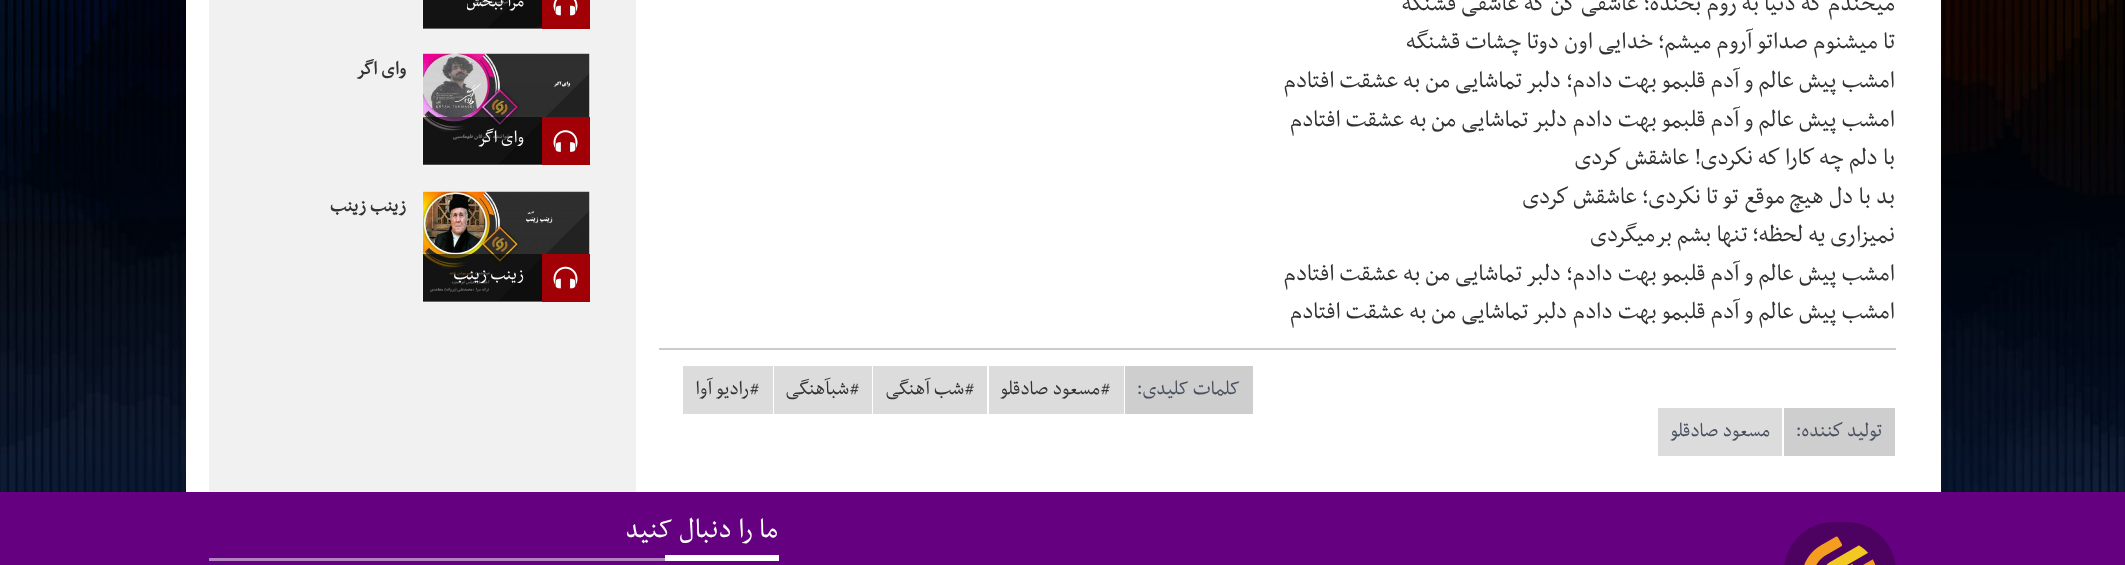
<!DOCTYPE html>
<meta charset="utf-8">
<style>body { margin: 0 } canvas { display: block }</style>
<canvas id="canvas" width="2125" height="565"></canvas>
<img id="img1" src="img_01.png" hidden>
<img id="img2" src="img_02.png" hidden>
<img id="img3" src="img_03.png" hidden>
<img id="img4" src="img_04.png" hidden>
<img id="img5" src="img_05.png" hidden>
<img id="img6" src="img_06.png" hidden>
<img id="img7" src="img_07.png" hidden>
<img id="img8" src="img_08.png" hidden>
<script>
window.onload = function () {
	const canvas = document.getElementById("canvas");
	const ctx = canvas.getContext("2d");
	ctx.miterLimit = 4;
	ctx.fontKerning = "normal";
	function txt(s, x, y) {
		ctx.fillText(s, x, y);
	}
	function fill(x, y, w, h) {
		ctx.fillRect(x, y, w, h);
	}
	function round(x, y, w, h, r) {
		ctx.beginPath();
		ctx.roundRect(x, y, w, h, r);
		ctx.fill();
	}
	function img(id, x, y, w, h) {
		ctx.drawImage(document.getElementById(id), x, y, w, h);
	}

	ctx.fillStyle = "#FFFFFF";
	fill(0, 0, 2125, 565);
	img("img1", 0, 0, 2125, 492);
	fill(186, 0, 1755, 492);
	ctx.fillStyle = "#CCCCCC";
	fill(659, 348, 1237, 2);
	ctx.fillStyle = "#CECECE";
	fill(1125, 366, 128, 48);
	ctx.fillStyle = "#DCDCDC";
	fill(989, 366, 135, 48);
	fill(873, 366, 114, 48);
	fill(774, 366, 98, 48);
	fill(683, 366, 90, 48);
	ctx.fillStyle = "#CECECE";
	fill(1784, 408, 111, 48);
	ctx.fillStyle = "#DCDCDC";
	fill(1658, 408, 124, 48);
	ctx.fillStyle = "#F1F1F1";
	fill(209, 0, 427, 492);
	ctx.strokeStyle = "#F4F4F4";
	ctx.lineWidth = 2;
	ctx.strokeRect(423, -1, 167, 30);
	img("img2", 423, 0, 119, 28);
	ctx.fillStyle = "rgba(0, 0, 0, 0.59)";
	fill(423, 0, 119, 29);
	ctx.fillStyle = "#A10007";
	fill(542, 0, 48, 29);
	img("img3", 553, 0, 25, 16);
	ctx.strokeRect(423, 54, 167, 112);
	img("img4", 423, 53, 167, 112);
	ctx.fillStyle = "rgba(0, 0, 0, 0.59)";
	fill(423, 117, 119, 48);
	ctx.fillStyle = "#A10007";
	fill(542, 117, 48, 48);
	img("img5", 553, 130, 25, 22);
	ctx.strokeRect(423, 192, 167, 110);
	img("img6", 423, 191, 167, 110);
	ctx.fillStyle = "rgba(0, 0, 0, 0.59)";
	fill(423, 254, 119, 48);
	ctx.fillStyle = "#A10007";
	fill(542, 254, 48, 48);
	img("img7", 553, 266, 25, 23);
	ctx.fillStyle = "#650180";
	fill(0, 492, 2125, 73);
	ctx.fillStyle = "#4D0161";
	round(1784, 522, 112, 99, 56);
	img("img8", 1804, 536, 72, 29);
	ctx.fillStyle = "#B483C1";
	fill(209, 558, 456, 3);
	ctx.fillStyle = "#FFFFFF";
	fill(665, 555, 114, 6);
	ctx.direction = "rtl";
	ctx.font = "27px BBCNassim";
	ctx.fillStyle = "#333333";
	txt("میخندم كه دنیا به روم بخنده؛ عاشقی كن كه عاشقی قشنگه", 1895, 10);
	txt("تا میشنوم صداتو آروم میشم؛ خدایی اون دوتا چشات قشنگه", 1895, 48);
	txt("امشب پیش عالم و آدم قلبمو بهت دادم؛ دلبر تماشایی من به عشقت افتادم", 1895, 87);
	txt("امشب پیش عالم و آدم قلبمو بهت دادم دلبر تماشایی من به عشقت افتادم", 1895, 126);
	txt("با دلم چه كارا كه نكردی! عاشقش كردی", 1895, 164);
	txt("بد با دل هیچ موقع تو تا نكردی؛ عاشقش كردی", 1895, 203);
	txt("نمیزاری یه لحظه؛ تنها بشم برمیگردی", 1895, 241);
	txt("امشب پیش عالم و آدم قلبمو بهت دادم؛ دلبر تماشایی من به عشقت افتادم", 1895, 280);
	txt("امشب پیش عالم و آدم قلبمو بهت دادم دلبر تماشایی من به عشقت افتادم", 1895, 318);
	ctx.font = "22.5px BBCNassim";
	ctx.fillStyle = "#484F5F";
	txt("کلمات کلیدی:", 1240, 394);
	ctx.fillStyle = "#333333";
	txt("#مسعود صادقلو", 1111, 394);
	txt("#شب آهنگی", 975, 394);
	txt("#شبآهنگی", 860, 394);
	txt("#رادیو آوا", 760, 394);
	ctx.fillStyle = "#484F5F";
	txt("تولید كننده:", 1882, 436);
	txt("مسعود صادقلو", 1770, 436);
	ctx.save();
	ctx.beginPath();
	ctx.rect(467, 0, 75, 15);
	ctx.clip();
	ctx.font = "19.5px BBCNassim";
	ctx.fillStyle = "#FFFFFF";
	txt("مرا ببخش", 524, 6);
	ctx.restore();
	ctx.font = "bold 21px BBCNassim";
	ctx.fillStyle = "#333333";
	txt("وای اگر", 406, 74);
	ctx.font = "19.5px BBCNassim";
	ctx.fillStyle = "#FFFFFF";
	txt("وای اگر", 524, 142);
	ctx.font = "bold 21px BBCNassim";
	ctx.fillStyle = "#333333";
	txt("زینب زینب", 406, 211);
	ctx.font = "19.5px BBCNassim";
	ctx.fillStyle = "#FFFFFF";
	txt("زینب زینب", 524, 279);
	ctx.font = "31.5px BBCNassim";
	txt("ما را دنبال کنید", 778, 537);
};
</script>
